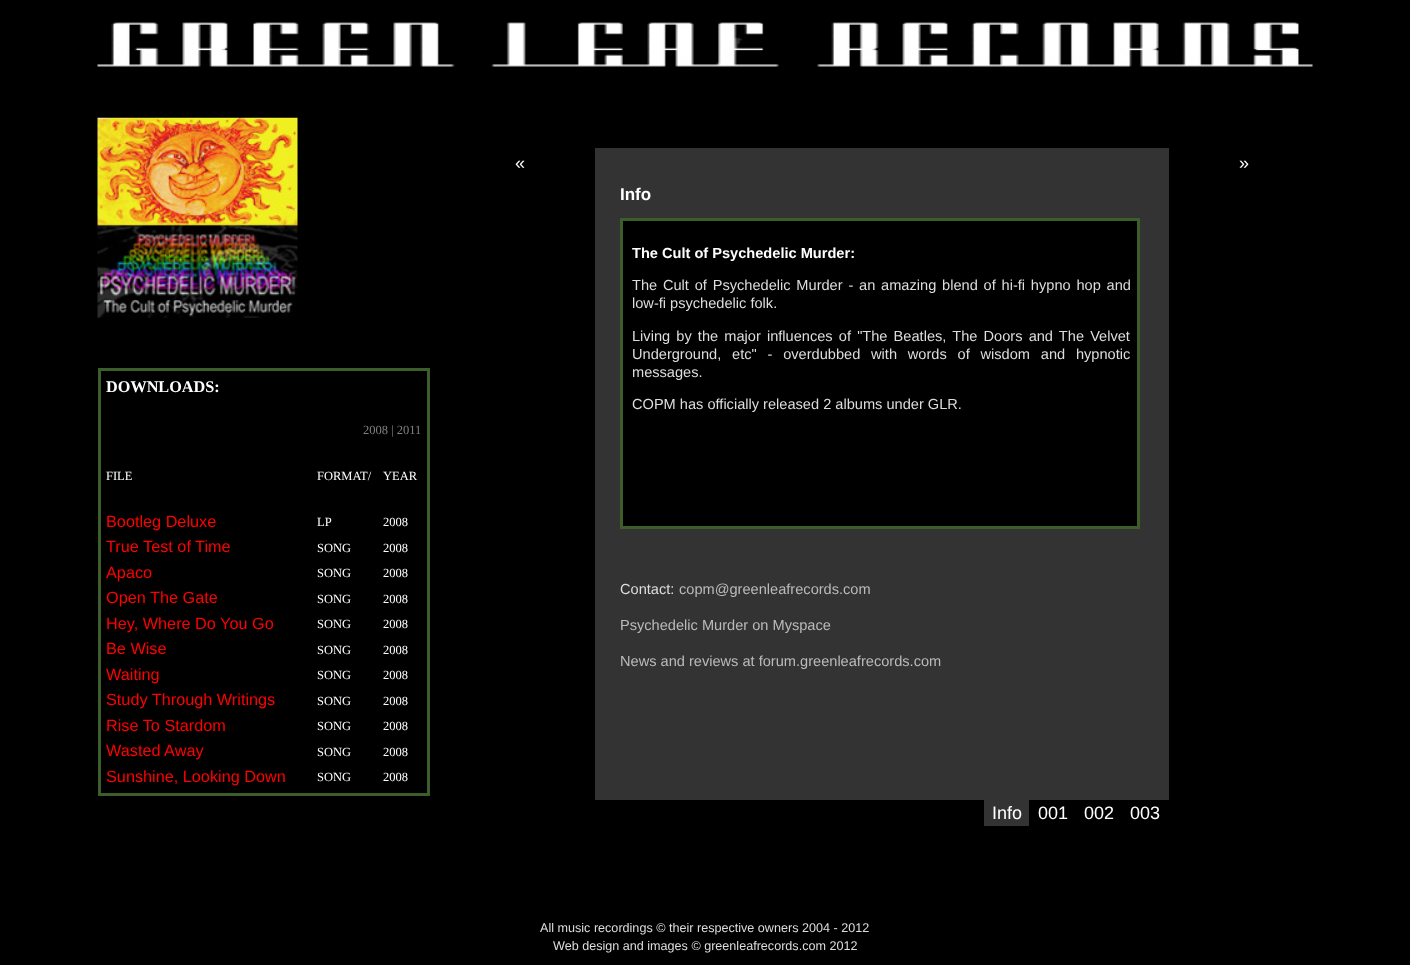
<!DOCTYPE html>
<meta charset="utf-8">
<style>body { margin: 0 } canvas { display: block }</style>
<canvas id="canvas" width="1410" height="965"></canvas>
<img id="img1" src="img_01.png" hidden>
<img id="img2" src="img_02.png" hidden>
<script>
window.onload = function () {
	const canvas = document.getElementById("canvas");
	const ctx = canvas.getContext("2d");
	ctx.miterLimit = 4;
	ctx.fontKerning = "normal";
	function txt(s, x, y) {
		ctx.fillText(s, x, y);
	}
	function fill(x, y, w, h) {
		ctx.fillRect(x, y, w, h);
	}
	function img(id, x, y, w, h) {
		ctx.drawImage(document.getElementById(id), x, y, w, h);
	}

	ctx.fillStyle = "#000000";
	fill(0, 0, 1410, 965);
	img("img1", 97, 22, 1216, 45);
	ctx.strokeStyle = "#3B5E2B";
	ctx.lineWidth = 3;
	ctx.strokeRect(99.5, 369.5, 329, 425);
	img("img2", 97, 117, 201, 201);
	ctx.fillStyle = "#333333";
	fill(595, 148, 574, 652);
	ctx.fillStyle = "#000000";
	ctx.beginPath();
	ctx.rect(621.5, 219.5, 517, 308);
	ctx.fill();
	ctx.stroke();
	ctx.fillStyle = "#333333";
	fill(984, 800, 45, 26);
	ctx.font = "bold 16.25px Liberation Serif";
	ctx.fillStyle = "#FFFFFF";
	txt("DOWNLOADS:", 106, 392);
	ctx.font = "12.5px Liberation Serif";
	ctx.fillStyle = "#808080";
	txt("2008 | 2011", 363, 434);
	ctx.fillStyle = "#FFFFFF";
	txt("FILE", 106, 480);
	txt("FORMAT/", 317, 480);
	txt("YEAR", 383, 480);
	ctx.font = "16.25px Liberation Sans";
	ctx.fillStyle = "#FF0000";
	txt("Bootleg Deluxe", 106, 527);
	ctx.font = "12.5px Liberation Serif";
	ctx.fillStyle = "#FFFFFF";
	txt("LP", 317, 526);
	txt("2008", 383, 526);
	ctx.font = "16.25px Liberation Sans";
	ctx.fillStyle = "#FF0000";
	txt("True Test of Time", 106, 552);
	ctx.font = "12.5px Liberation Serif";
	ctx.fillStyle = "#FFFFFF";
	txt("SONG", 317, 552);
	txt("2008", 383, 552);
	ctx.font = "16.25px Liberation Sans";
	ctx.fillStyle = "#FF0000";
	txt("Apaco", 106, 578);
	ctx.font = "12.5px Liberation Serif";
	ctx.fillStyle = "#FFFFFF";
	txt("SONG", 317, 577);
	txt("2008", 383, 577);
	ctx.font = "16.25px Liberation Sans";
	ctx.fillStyle = "#FF0000";
	txt("Open The Gate", 106, 603);
	ctx.font = "12.5px Liberation Serif";
	ctx.fillStyle = "#FFFFFF";
	txt("SONG", 317, 603);
	txt("2008", 383, 603);
	ctx.font = "16.25px Liberation Sans";
	ctx.fillStyle = "#FF0000";
	txt("Hey, Where Do You Go", 106, 629);
	ctx.font = "12.5px Liberation Serif";
	ctx.fillStyle = "#FFFFFF";
	txt("SONG", 317, 628);
	txt("2008", 383, 628);
	ctx.font = "16.25px Liberation Sans";
	ctx.fillStyle = "#FF0000";
	txt("Be Wise", 106, 654);
	ctx.font = "12.5px Liberation Serif";
	ctx.fillStyle = "#FFFFFF";
	txt("SONG", 317, 654);
	txt("2008", 383, 654);
	ctx.font = "16.25px Liberation Sans";
	ctx.fillStyle = "#FF0000";
	txt("Waiting", 106, 680);
	ctx.font = "12.5px Liberation Serif";
	ctx.fillStyle = "#FFFFFF";
	txt("SONG", 317, 679);
	txt("2008", 383, 679);
	ctx.font = "16.25px Liberation Sans";
	ctx.fillStyle = "#FF0000";
	txt("Study Through Writings", 106, 705);
	ctx.font = "12.5px Liberation Serif";
	ctx.fillStyle = "#FFFFFF";
	txt("SONG", 317, 705);
	txt("2008", 383, 705);
	ctx.font = "16.25px Liberation Sans";
	ctx.fillStyle = "#FF0000";
	txt("Rise To Stardom", 106, 731);
	ctx.font = "12.5px Liberation Serif";
	ctx.fillStyle = "#FFFFFF";
	txt("SONG", 317, 730);
	txt("2008", 383, 730);
	ctx.font = "16.25px Liberation Sans";
	ctx.fillStyle = "#FF0000";
	txt("Wasted Away", 106, 756);
	ctx.font = "12.5px Liberation Serif";
	ctx.fillStyle = "#FFFFFF";
	txt("SONG", 317, 756);
	txt("2008", 383, 756);
	ctx.font = "16.25px Liberation Sans";
	ctx.fillStyle = "#FF0000";
	txt("Sunshine, Looking Down", 106, 782);
	ctx.font = "12.5px Liberation Serif";
	ctx.fillStyle = "#FFFFFF";
	txt("SONG", 317, 781);
	txt("2008", 383, 781);
	ctx.font = "18px Liberation Sans";
	txt("«", 515, 169);
	txt("»", 1239, 169);
	ctx.font = "bold 17px Liberation Sans";
	txt("Info", 620, 200);
	ctx.font = "bold 14.6px Liberation Sans";
	txt("The Cult of Psychedelic Murder:", 632, 258);
	ctx.wordSpacing = "1.75px";
	ctx.font = "14.6px Liberation Sans";
	ctx.fillStyle = "#DDDDDD";
	txt("The Cult of Psychedelic Murder - an amazing blend of hi-fi hypno hop and", 632, 290);
	ctx.wordSpacing = "0px";
	txt("low-fi psychedelic folk.", 632, 308);
	ctx.wordSpacing = "2.1px";
	txt("Living by the major influences of \"The Beatles, The Doors and The Velvet", 632, 341);
	ctx.wordSpacing = "6.75px";
	txt("Underground, etc\" - overdubbed with words of wisdom and hypnotic", 632, 359);
	ctx.wordSpacing = "0px";
	txt("messages.", 632, 377);
	txt("COPM has officially released 2 albums under GLR.", 632, 409);
	txt("Contact:", 620, 594);
	ctx.fillStyle = "#BBBBBB";
	txt("copm@greenleafrecords.com", 679, 594);
	txt("Psychedelic Murder on Myspace", 620, 630);
	txt("News and reviews at forum.greenleafrecords.com", 620, 666);
	ctx.font = "18px Liberation Sans";
	ctx.fillStyle = "#FFFFFF";
	txt("Info", 992, 819);
	txt("001", 1038, 819);
	txt("002", 1084, 819);
	txt("003", 1130, 819);
	ctx.font = "12.6px Liberation Sans";
	ctx.fillStyle = "#DDDDDD";
	txt("All music recordings © their respective owners 2004 - 2012", 540, 932);
	txt("Web design and images © greenleafrecords.com 2012", 553, 950);
};
</script>
